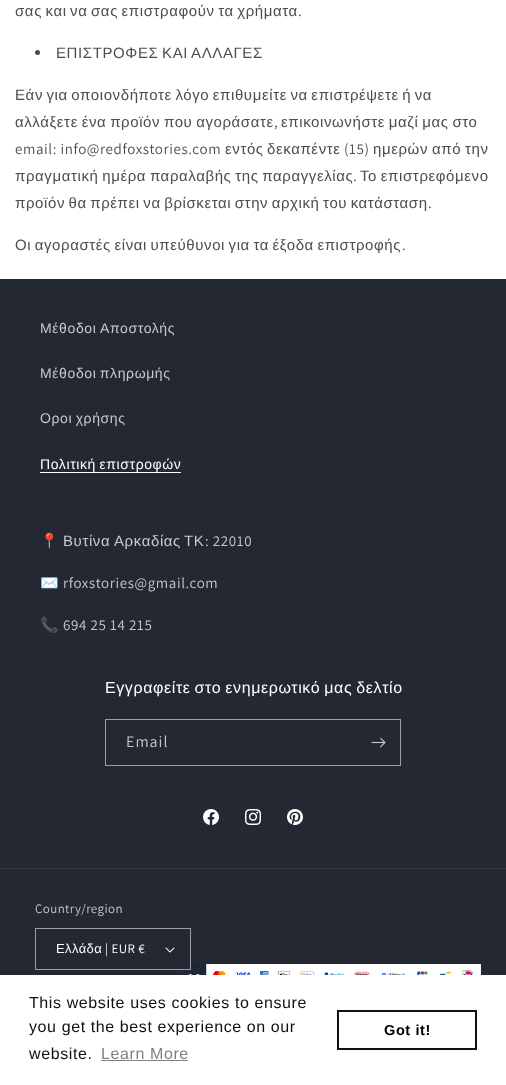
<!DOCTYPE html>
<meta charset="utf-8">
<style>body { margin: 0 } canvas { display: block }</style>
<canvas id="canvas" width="506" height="1085"></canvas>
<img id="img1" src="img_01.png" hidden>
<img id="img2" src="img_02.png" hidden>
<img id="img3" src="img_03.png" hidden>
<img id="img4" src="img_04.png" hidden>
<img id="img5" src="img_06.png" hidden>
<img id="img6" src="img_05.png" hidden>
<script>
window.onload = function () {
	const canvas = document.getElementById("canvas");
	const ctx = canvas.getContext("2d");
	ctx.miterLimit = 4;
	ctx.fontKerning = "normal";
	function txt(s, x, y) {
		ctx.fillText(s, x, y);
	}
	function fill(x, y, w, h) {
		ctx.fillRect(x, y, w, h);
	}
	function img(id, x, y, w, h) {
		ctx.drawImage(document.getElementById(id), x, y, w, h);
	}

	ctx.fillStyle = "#FFFFFF";
	fill(0, 0, 506, 1085);
	ctx.fillStyle = "#4D4D4D";
	ctx.beginPath();
	ctx.arc(37.5, 52.5, 2.5, 0, Math.PI * 2);
	ctx.fill();
	ctx.fillStyle = "#242833";
	fill(0, 279, 506, 696);
	ctx.fillStyle = "#FFFFFF";
	fill(40, 472, 141, 1);
	ctx.strokeStyle = "#9C9EA3";
	ctx.strokeRect(105.5, 719.5, 295, 46);
	img("img1", 371, 737, 15, 11);
	img("img2", 203, 809, 16, 16);
	img("img3", 245, 809, 16, 16);
	img("img4", 287, 809, 16, 16);
	ctx.fillStyle = "#363943";
	fill(0, 868, 506, 1);
	img("img5", 181, 964, 300, 11);
	ctx.fillStyle = "#242833";
	fill(181, 964, 9, 5);
	img("img6", 165, 947, 10, 6);
	ctx.strokeRect(35.5, 928.5, 155, 41);
	ctx.fillStyle = "#818181";
	fill(101, 1060, 87, 1);
	ctx.strokeStyle = "#111111";
	ctx.lineWidth = 2;
	ctx.strokeRect(338, 1011, 138, 38);
	ctx.letterSpacing = "0.6px";
	ctx.wordSpacing = "-1.25px";
	ctx.font = "15px Liberation Sans";
	ctx.fillStyle = "#4D4D4D";
	txt("σας και να σας επιστραφούν τα χρήματα", 15, 16);
	ctx.wordSpacing = "0px";
	ctx.font = "15px Assistant";
	txt(".", 298, 16);
	ctx.wordSpacing = "-1px";
	ctx.font = "15px Liberation Sans";
	txt("ΕΠΙΣΤΡΟΦΕΣ ΚΑΙ ΑΛΛΑΓΕΣ", 56, 58);
	ctx.wordSpacing = "-1.25px";
	txt("Εάν για οποιονδήποτε λόγο επιθυμείτε να επιστρέψετε ή να", 15, 100);
	ctx.wordSpacing = "-1px";
	txt("αλλάξετε ένα προϊόν που αγοράσατε", 15, 127);
	ctx.wordSpacing = "0px";
	ctx.font = "15px Assistant";
	txt(",", 274, 127);
	ctx.wordSpacing = "-1px";
	ctx.font = "15px Liberation Sans";
	txt("επικοινωνήστε μαζί μας στο", 281, 127);
	ctx.wordSpacing = "0px";
	ctx.font = "15px Assistant";
	txt("email: info@redfoxstories.com", 15, 154);
	ctx.font = "15px Liberation Sans";
	txt("εντός", 225, 154);
	txt("δεκαπέντε", 267, 154);
	ctx.font = "15px Assistant";
	txt("(15)", 344, 154);
	ctx.font = "15px Liberation Sans";
	txt("ημερών", 373, 154);
	txt("από", 432, 154);
	txt("την", 465, 154);
	ctx.wordSpacing = "-1px";
	txt("πραγματική ημέρα παραλαβής της παραγγελίας", 15, 181);
	ctx.wordSpacing = "0px";
	ctx.font = "15px Assistant";
	txt(".", 353, 181);
	ctx.wordSpacing = "-1px";
	ctx.font = "15px Liberation Sans";
	txt("Το επιστρεφόμενο", 360, 181);
	ctx.wordSpacing = "-1.25px";
	txt("προϊόν θα πρέπει να βρίσκεται στην αρχική του κατάσταση", 15, 208);
	ctx.wordSpacing = "0px";
	ctx.font = "15px Assistant";
	txt(".", 428, 208);
	ctx.wordSpacing = "-1.25px";
	ctx.font = "15px Liberation Sans";
	txt("Οι αγοραστές είναι υπεύθυνοι για τα έξοδα επιστροφής", 15, 250);
	ctx.wordSpacing = "0px";
	ctx.font = "15px Assistant";
	txt(".", 402, 250);
	ctx.font = "14px Liberation Sans";
	ctx.fillStyle = "#C8C9CC";
	txt("Μέθοδοι Αποστολής", 40, 333);
	ctx.wordSpacing = "-1px";
	txt("Μέθοδοι πληρωμής", 40, 378);
	txt("Οροι χρήσης", 40, 423);
	ctx.fillStyle = "#FFFFFF";
	txt("Πολιτική επιστροφών", 40, 469);
	ctx.wordSpacing = "0px";
	ctx.font = "15px Noto Color Emoji";
	ctx.fillStyle = "#C8C9CC";
	txt("📍", 40, 546);
	ctx.font = "15px Liberation Sans";
	txt("Βυτίνα", 63, 546);
	txt("Αρκαδίας", 114, 546);
	txt("ΤΚ", 184, 546);
	ctx.font = "15px Assistant";
	txt(": 22010", 205, 546);
	ctx.font = "15px Noto Color Emoji";
	txt("✉️", 40, 588);
	ctx.font = "15px Assistant";
	txt("rfoxstories@gmail.com", 63, 588);
	ctx.font = "15px Noto Color Emoji";
	txt("📞", 40, 630);
	ctx.font = "15px Assistant";
	txt("694 25 14 215", 63, 630);
	ctx.wordSpacing = "-1px";
	ctx.font = "16px Liberation Sans";
	ctx.fillStyle = "#FFFFFF";
	txt("Εγγραφείτε στο ενημερωτικό μας δελτίο", 105, 693);
	ctx.letterSpacing = "1px";
	ctx.wordSpacing = "0px";
	ctx.font = "16px Assistant";
	ctx.fillStyle = "#C8C9CC";
	txt("Email", 126, 747);
	ctx.letterSpacing = "0.4px";
	ctx.font = "13px Assistant";
	txt("Country/region", 35, 913);
	ctx.font = "13px Liberation Sans";
	ctx.fillStyle = "#FFFFFF";
	txt("Ελλάδα", 56, 953);
	ctx.font = "13px Assistant";
	txt("| EUR €", 105, 953);
	ctx.letterSpacing = "0.6px";
	ctx.font = "16px Liberation Sans";
	ctx.fillStyle = "#111111";
	txt("This website uses cookies to ensure", 29, 1008);
	txt("you get the best experience on our", 29, 1032);
	txt("website.", 29, 1059);
	ctx.fillStyle = "#818181";
	txt("Learn More", 101, 1059);
	ctx.font = "bold 14.5px Liberation Sans";
	ctx.fillStyle = "#000000";
	txt("Got it!", 384, 1035);
};
</script>
